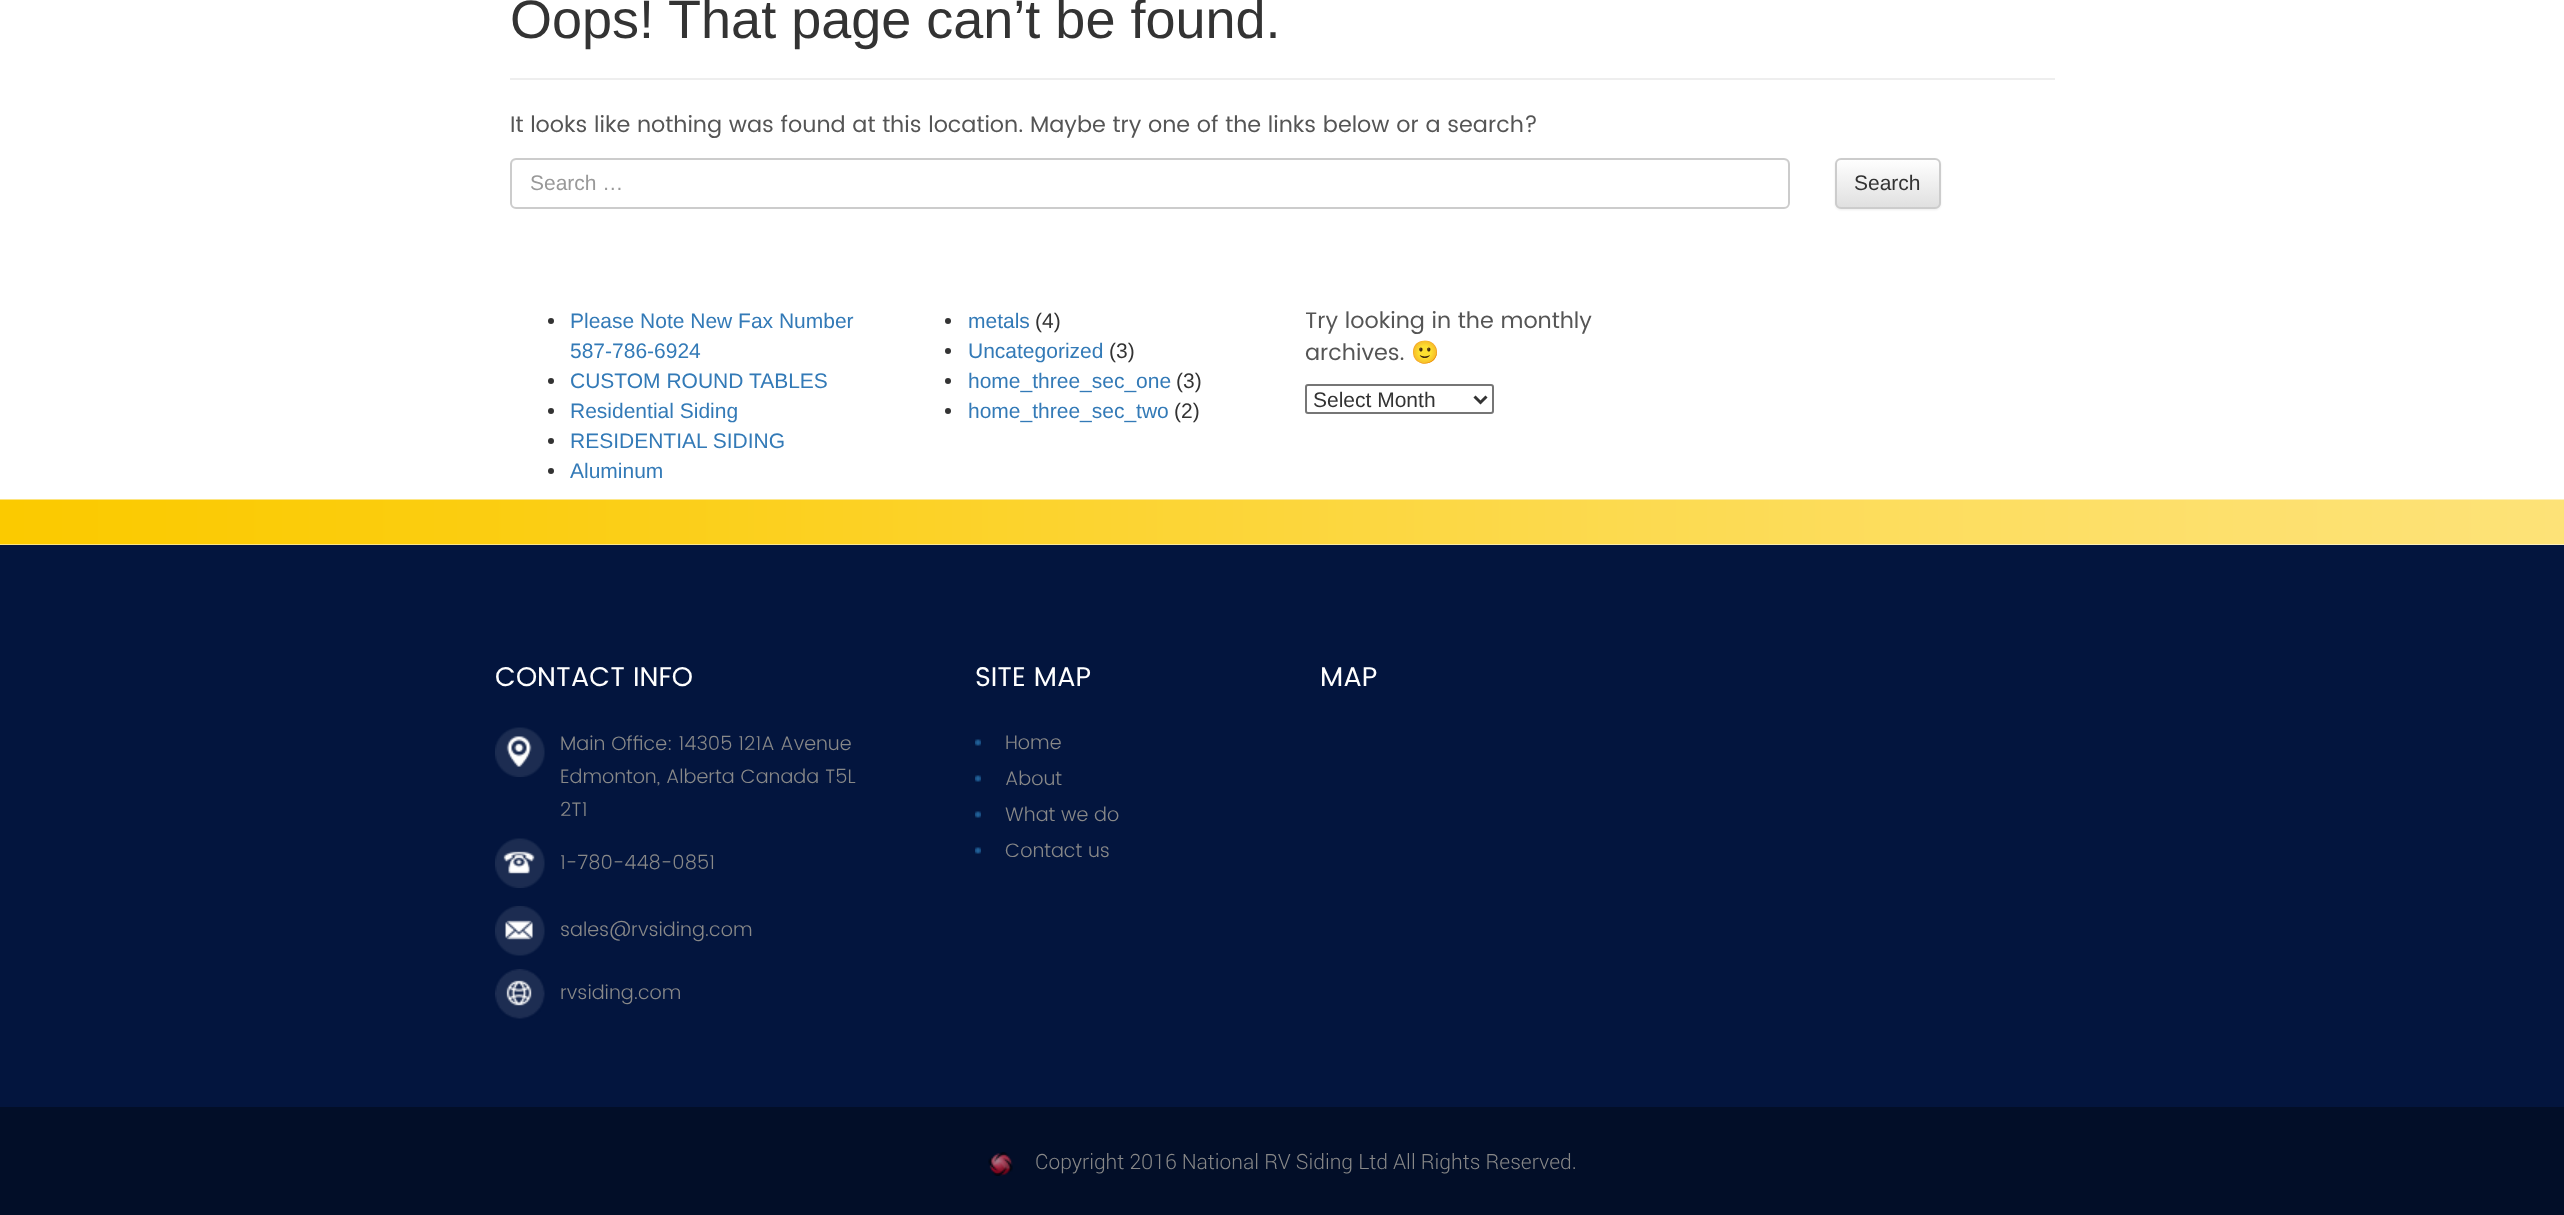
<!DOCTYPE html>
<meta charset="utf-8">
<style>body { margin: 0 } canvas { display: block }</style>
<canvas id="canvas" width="2564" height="1215"></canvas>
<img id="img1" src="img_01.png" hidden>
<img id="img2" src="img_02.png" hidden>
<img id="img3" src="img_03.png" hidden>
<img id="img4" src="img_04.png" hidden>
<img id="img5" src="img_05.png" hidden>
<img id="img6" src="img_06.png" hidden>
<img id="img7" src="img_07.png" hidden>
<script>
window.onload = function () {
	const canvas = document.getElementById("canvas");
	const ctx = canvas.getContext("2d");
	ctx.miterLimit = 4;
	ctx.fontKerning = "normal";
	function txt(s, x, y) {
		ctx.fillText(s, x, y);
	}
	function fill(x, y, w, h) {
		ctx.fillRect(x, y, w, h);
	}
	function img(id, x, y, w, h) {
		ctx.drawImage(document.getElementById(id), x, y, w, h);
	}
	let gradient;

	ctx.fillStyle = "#FFFFFF";
	fill(0, 0, 2564, 1215);
	ctx.fillStyle = "#EEEEEE";
	fill(510, 78, 1545, 2);
	ctx.fillStyle = "#ECECEC";
	ctx.beginPath();
	ctx.moveTo(516, 160);
	ctx.lineTo(1784, 160);
	ctx.bezierCurveTo(1786, 160, 1788, 163, 1788, 165);
	ctx.bezierCurveTo(1788, 162, 1786, 159, 1783, 159);
	ctx.lineTo(517, 159);
	ctx.bezierCurveTo(514, 159, 512, 162, 512, 165);
	ctx.bezierCurveTo(512, 163, 514, 160, 516, 160);
	ctx.closePath();
	ctx.fill();
	ctx.beginPath();
	ctx.roundRect(511, 159, 1278, 49, 5);
	ctx.strokeStyle = "#CCCCCC";
	ctx.lineWidth = 2;
	ctx.stroke();
	ctx.fillStyle = "rgba(0, 0, 0, 0.07)";
	ctx.filter = "blur(1px)";
	ctx.beginPath();
	ctx.roundRect(1835, 159, 106, 51, 6);
	ctx.fill();
	ctx.filter = "none";
	ctx.save();
	ctx.beginPath();
	ctx.roundRect(1835, 158, 106, 51, 6);
	ctx.clip();
	gradient = ctx.createLinearGradient(1888, 159, 1888, 207);
	gradient.addColorStop(0, "#FFFFFF");
	gradient.addColorStop(1, "#E0E0E0");
	ctx.fillStyle = gradient;
	fill(1835, 159, 106, 48);
	ctx.restore();
	ctx.fillStyle = "#FFFFFF";
	ctx.beginPath();
	ctx.moveTo(1840, 160);
	ctx.lineTo(1935, 160);
	ctx.bezierCurveTo(1937, 160, 1940, 163, 1940, 165);
	ctx.bezierCurveTo(1940, 155, 1925, 159, 1919, 159);
	ctx.lineTo(1857, 159);
	ctx.bezierCurveTo(1851, 159, 1836, 155, 1836, 165);
	ctx.bezierCurveTo(1836, 163, 1838, 160, 1840, 160);
	ctx.closePath();
	ctx.fill();
	ctx.beginPath();
	ctx.roundRect(1836, 159, 104, 49, 5);
	ctx.stroke();
	ctx.fillStyle = "#333333";
	ctx.beginPath();
	ctx.arc(551, 321, 3, 0, Math.PI * 2);
	ctx.fill();
	ctx.beginPath();
	ctx.arc(551, 381, 3, 0, Math.PI * 2);
	ctx.fill();
	ctx.beginPath();
	ctx.arc(551, 411, 3, 0, Math.PI * 2);
	ctx.fill();
	ctx.beginPath();
	ctx.arc(551, 441, 3, 0, Math.PI * 2);
	ctx.fill();
	ctx.beginPath();
	ctx.arc(551, 471, 3, 0, Math.PI * 2);
	ctx.fill();
	ctx.beginPath();
	ctx.arc(948, 321, 3, 0, Math.PI * 2);
	ctx.fill();
	ctx.beginPath();
	ctx.arc(948, 351, 3, 0, Math.PI * 2);
	ctx.fill();
	ctx.beginPath();
	ctx.arc(948, 381, 3, 0, Math.PI * 2);
	ctx.fill();
	ctx.beginPath();
	ctx.arc(948, 411, 3, 0, Math.PI * 2);
	ctx.fill();
	ctx.beginPath();
	ctx.roundRect(1306, 385, 187, 28, 2);
	ctx.strokeStyle = "#767676";
	ctx.stroke();
	ctx.beginPath();
	ctx.moveTo(1474.5, 396.5);
	ctx.lineTo(1480.5, 402.5);
	ctx.lineTo(1486.5, 396.5);
	ctx.strokeStyle = "#333333";
	ctx.lineWidth = 3;
	ctx.stroke();
	img("img1", 0, 499, 2564, 46);
	ctx.fillStyle = "#03153E";
	fill(0, 545, 2564, 562);
	img("img2", 495, 727, 50, 50);
	img("img3", 495, 838, 50, 50);
	img("img4", 495, 906, 50, 50);
	img("img5", 495, 969, 50, 50);
	img("img6", 975, 739, 6, 7);
	img("img6", 975, 775, 6, 7);
	img("img6", 975, 811, 6, 7);
	img("img6", 975, 847, 6, 7);
	ctx.fillStyle = "#020E28";
	fill(0, 1107, 2564, 108);
	img("img7", 988, 1152, 25, 24);
	ctx.font = "54px Liberation Sans";
	ctx.fillStyle = "#333333";
	txt("Oops! That page can’t be found.", 510, 38);
	ctx.font = "22.5px Poppins";
	ctx.fillStyle = "#555555";
	txt("It looks like nothing was found at this location. Maybe try one of the links below or a search?", 510, 132);
	ctx.font = "21px Liberation Sans";
	ctx.fillStyle = "#999999";
	txt("Search …", 530, 190);
	ctx.fillStyle = "#333333";
	txt("Search", 1854, 190);
	ctx.fillStyle = "#337AB7";
	txt("Please Note New Fax Number", 570, 328);
	txt("587-786-6924", 570, 358);
	txt("CUSTOM ROUND TABLES", 570, 388);
	txt("Residential Siding", 570, 418);
	txt("RESIDENTIAL SIDING", 570, 448);
	txt("Aluminum", 570, 478);
	txt("metals", 968, 328);
	ctx.fillStyle = "#333333";
	txt("(4)", 1035, 328);
	ctx.fillStyle = "#337AB7";
	txt("Uncategorized", 968, 358);
	ctx.fillStyle = "#333333";
	txt("(3)", 1109, 358);
	ctx.fillStyle = "#337AB7";
	txt("home_three_sec_one", 968, 388);
	ctx.fillStyle = "#333333";
	txt("(3)", 1176, 388);
	ctx.fillStyle = "#337AB7";
	txt("home_three_sec_two", 968, 418);
	ctx.fillStyle = "#333333";
	txt("(2)", 1174, 418);
	ctx.font = "22.5px Poppins";
	ctx.fillStyle = "#555555";
	txt("Try looking in the monthly", 1305, 328);
	txt("archives.", 1305, 360);
	ctx.font = "22.5px Noto Color Emoji";
	txt("🙂", 1411, 360);
	ctx.font = "21px Liberation Sans";
	ctx.fillStyle = "#333333";
	txt("Select Month", 1313, 407);
	ctx.font = "27px Poppins";
	ctx.fillStyle = "#FFFFFF";
	txt("CONTACT INFO", 495, 686);
	ctx.font = "300 19.5px Poppins";
	ctx.fillStyle = "#888888";
	txt("Main Office: 14305 121A Avenue", 560, 750);
	txt("Edmonton, Alberta Canada T5L", 560, 783);
	txt("2T1", 560, 816);
	txt("1-780-448-0851", 560, 869);
	txt("sales@rvsiding.com", 560, 936);
	txt("rvsiding.com", 560, 999);
	ctx.font = "27px Poppins";
	ctx.fillStyle = "#FFFFFF";
	txt("SITE MAP", 975, 686);
	ctx.font = "300 19.5px Poppins";
	ctx.fillStyle = "#888888";
	txt("Home", 1005, 749);
	txt("About", 1005, 785);
	txt("What we do", 1005, 821);
	txt("Contact us", 1005, 857);
	ctx.font = "27px Poppins";
	ctx.fillStyle = "#FFFFFF";
	txt("MAP", 1320, 686);
	ctx.font = "300 21px Roboto";
	ctx.fillStyle = "#888888";
	txt("Copyright 2016 National RV Siding Ltd All Rights Reserved.", 1035, 1169);
};
</script>
